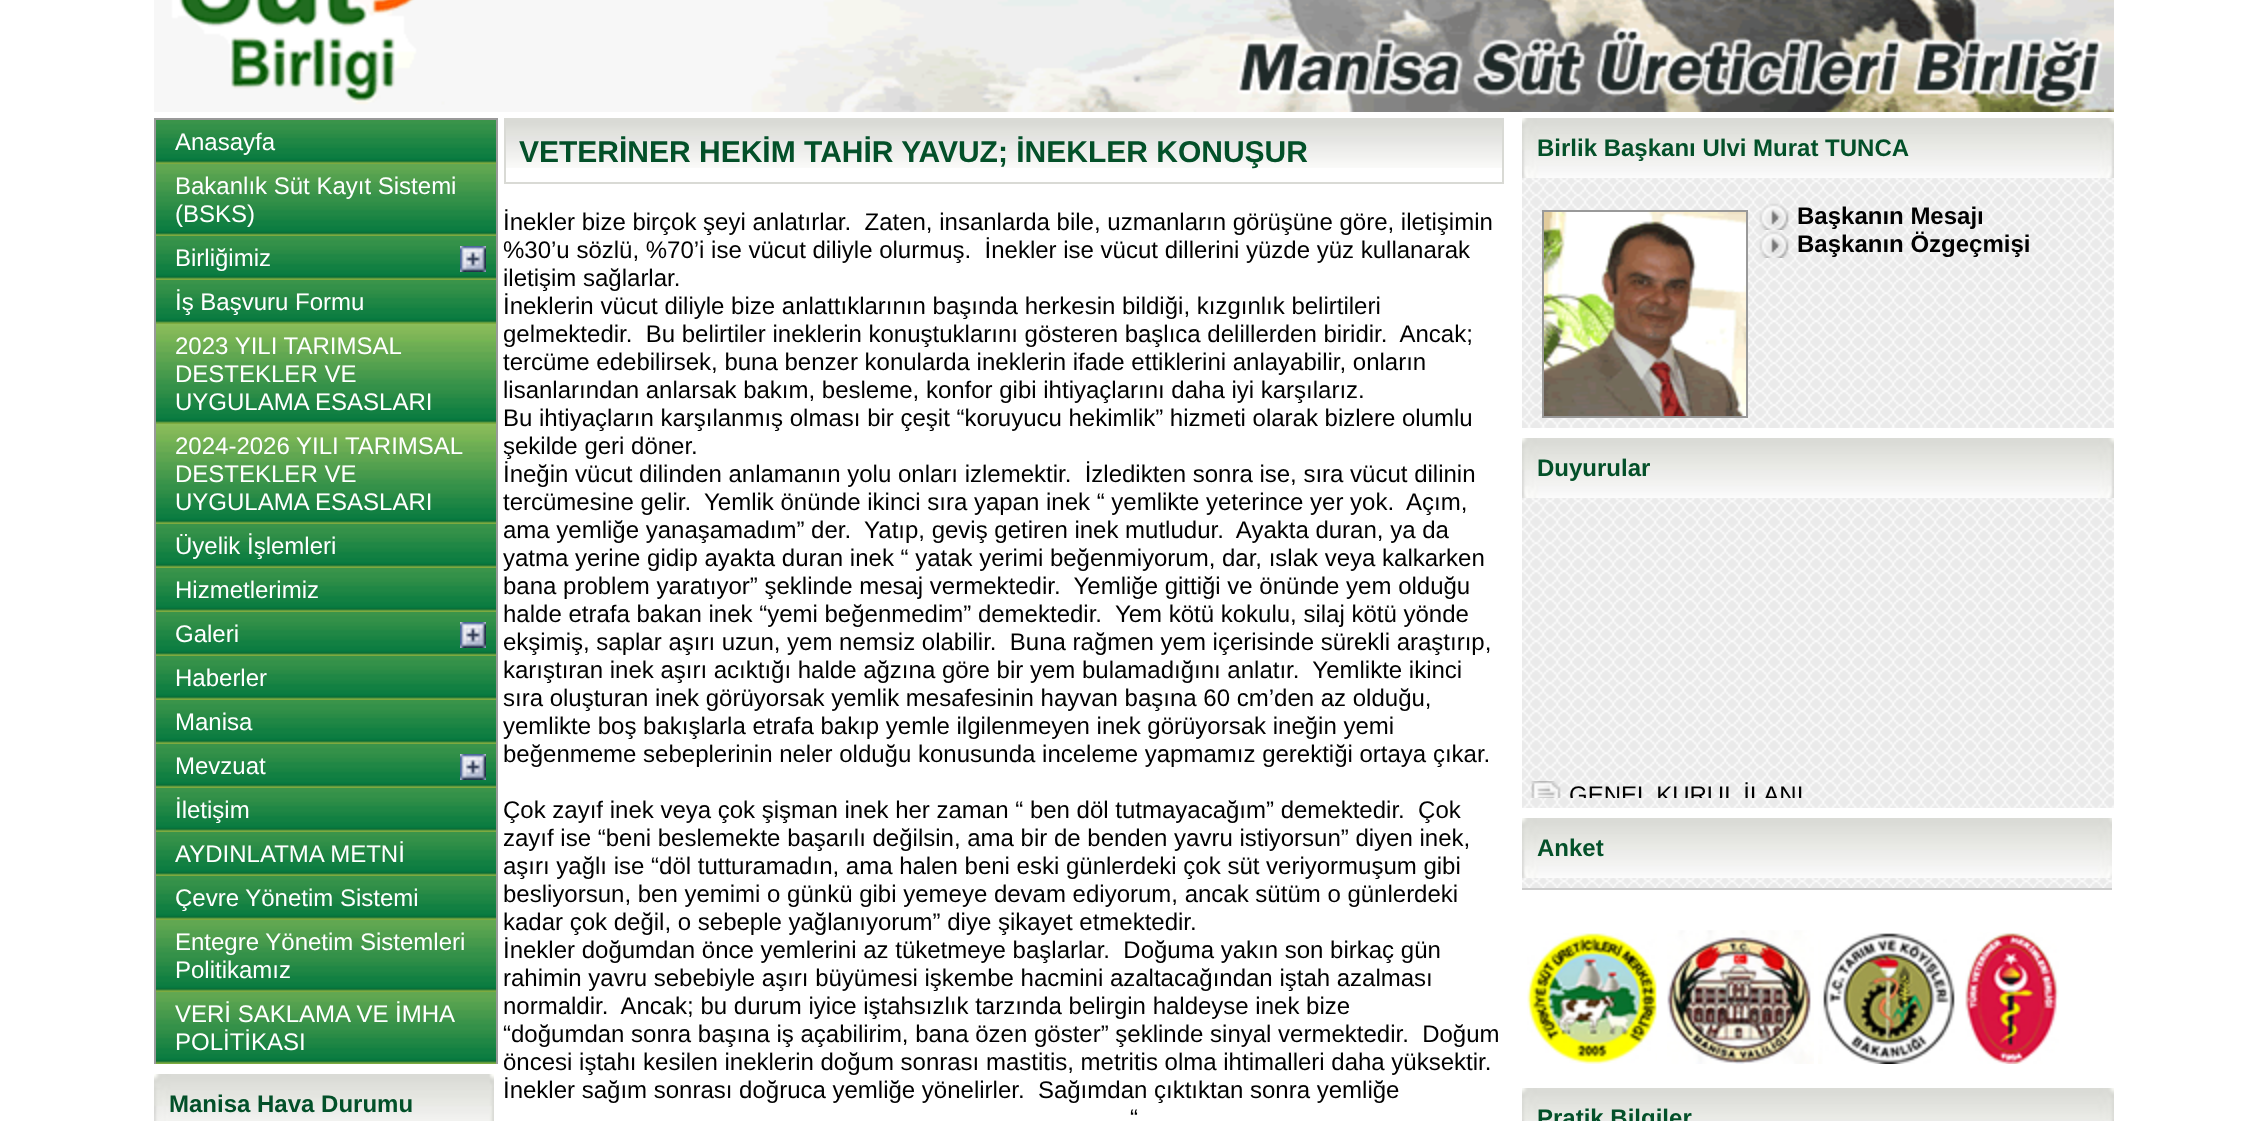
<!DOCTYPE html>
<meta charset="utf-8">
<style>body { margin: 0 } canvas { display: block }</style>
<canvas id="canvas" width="2266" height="1121"></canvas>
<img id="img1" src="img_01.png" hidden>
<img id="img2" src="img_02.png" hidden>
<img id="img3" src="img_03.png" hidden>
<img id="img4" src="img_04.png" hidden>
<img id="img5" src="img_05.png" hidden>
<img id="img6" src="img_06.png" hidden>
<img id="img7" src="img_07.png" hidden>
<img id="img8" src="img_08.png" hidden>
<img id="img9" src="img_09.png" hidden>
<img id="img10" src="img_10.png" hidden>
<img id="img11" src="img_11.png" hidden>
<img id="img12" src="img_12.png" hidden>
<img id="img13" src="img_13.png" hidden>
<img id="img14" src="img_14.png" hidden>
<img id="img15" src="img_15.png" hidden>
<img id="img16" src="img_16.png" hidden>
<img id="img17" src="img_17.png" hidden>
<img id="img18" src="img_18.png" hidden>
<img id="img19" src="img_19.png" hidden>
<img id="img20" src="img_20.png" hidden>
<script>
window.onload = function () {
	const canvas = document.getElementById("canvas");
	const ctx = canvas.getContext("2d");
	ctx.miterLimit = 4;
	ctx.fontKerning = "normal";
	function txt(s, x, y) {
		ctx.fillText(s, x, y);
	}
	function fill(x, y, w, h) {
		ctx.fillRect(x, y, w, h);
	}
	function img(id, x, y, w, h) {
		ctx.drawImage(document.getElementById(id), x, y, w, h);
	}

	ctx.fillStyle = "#FFFFFF";
	fill(0, 0, 2266, 1121);
	img("img1", 154, 0, 1960, 112);
	ctx.fillStyle = "#9A9A9A";
	fill(154, 118, 344, 2);
	fill(496, 118, 2, 946);
	fill(154, 118, 2, 946);
	img("img2", 156, 120, 340, 44);
	img("img3", 156, 164, 340, 72);
	img("img2", 156, 236, 340, 44);
	img("img4", 460, 246, 26, 26);
	img("img2", 156, 280, 340, 44);
	img("img5", 156, 324, 340, 100);
	img("img5", 156, 424, 340, 100);
	img("img2", 156, 524, 340, 44);
	img("img2", 156, 568, 340, 44);
	img("img2", 156, 612, 340, 44);
	img("img4", 460, 622, 26, 26);
	img("img2", 156, 656, 340, 44);
	img("img2", 156, 700, 340, 44);
	img("img2", 156, 744, 340, 44);
	img("img4", 460, 754, 26, 26);
	img("img2", 156, 788, 340, 44);
	img("img2", 156, 832, 340, 44);
	img("img2", 156, 876, 340, 44);
	img("img3", 156, 920, 340, 72);
	img("img3", 156, 992, 340, 72);
	img("img6", 154, 1074, 340, 47);
	img("img7", 506, 120, 996, 48);
	ctx.strokeStyle = "#D9DAD5";
	ctx.lineWidth = 2;
	ctx.strokeRect(505, 119, 998, 64);
	img("img8", 1522, 178, 592, 250);
	img("img9", 1522, 118, 592, 60);
	ctx.strokeStyle = "#999999";
	ctx.strokeRect(1543, 211, 204, 206);
	img("img10", 1544, 212, 202, 204);
	img("img11", 1759, 203, 30, 27);
	img("img11", 1759, 231, 30, 27);
	img("img12", 1522, 498, 592, 310);
	img("img9", 1522, 438, 592, 60);
	img("img13", 1531, 781, 30, 17);
	img("img14", 1522, 878, 590, 10);
	ctx.fillStyle = "#CCCCCC";
	fill(1522, 888, 590, 2);
	img("img15", 1522, 818, 590, 60);
	img("img16", 1527, 933, 130, 131);
	img("img17", 1667, 930, 147, 134);
	img("img18", 1818, 933, 137, 131);
	img("img19", 1965, 932, 94, 132);
	img("img20", 1522, 1088, 592, 33);
	ctx.font = "24px Liberation Sans";
	ctx.fillStyle = "#FFFFFF";
	txt("Anasayfa", 175, 150);
	txt("Bakanlık Süt Kayıt Sistemi", 175, 194);
	txt("(BSKS)", 175, 222);
	txt("Birliğimiz", 175, 266);
	txt("İş Başvuru Formu", 175, 310);
	txt("2023 YILI TARIMSAL", 175, 354);
	txt("DESTEKLER VE", 175, 382);
	txt("UYGULAMA ESASLARI", 175, 410);
	txt("2024-2026 YILI TARIMSAL", 175, 454);
	txt("DESTEKLER VE", 175, 482);
	txt("UYGULAMA ESASLARI", 175, 510);
	txt("Üyelik İşlemleri", 175, 554);
	txt("Hizmetlerimiz", 175, 598);
	txt("Galeri", 175, 642);
	txt("Haberler", 175, 686);
	txt("Manisa", 175, 730);
	txt("Mevzuat", 175, 774);
	txt("İletişim", 175, 818);
	txt("AYDINLATMA METNİ", 175, 862);
	txt("Çevre Yönetim Sistemi", 175, 906);
	txt("Entegre Yönetim Sistemleri", 175, 950);
	txt("Politikamız", 175, 978);
	txt("VERİ SAKLAMA VE İMHA", 175, 1022);
	txt("POLİTİKASI", 175, 1050);
	ctx.font = "bold 24px Liberation Sans";
	ctx.fillStyle = "#035029";
	txt("Manisa Hava Durumu", 169, 1112);
	ctx.font = "bold 30px Liberation Sans";
	txt("VETERİNER HEKİM TAHİR YAVUZ; İNEKLER KONUŞUR", 519, 162);
	ctx.font = "24px Liberation Sans";
	ctx.fillStyle = "#000000";
	txt("İnekler bize birçok şeyi anlatırlar.  Zaten, insanlarda bile, uzmanların görüşüne göre, iletişimin", 503, 230);
	txt("%30’u sözlü, %70’i ise vücut diliyle olurmuş.  İnekler ise vücut dillerini yüzde yüz kullanarak", 503, 258);
	txt("iletişim sağlarlar.", 503, 286);
	txt("İneklerin vücut diliyle bize anlattıklarının başında herkesin bildiği, kızgınlık belirtileri", 503, 314);
	txt("gelmektedir.  Bu belirtiler ineklerin konuştuklarını gösteren başlıca delillerden biridir.  Ancak;", 503, 342);
	txt("tercüme edebilirsek, buna benzer konularda ineklerin ifade ettiklerini anlayabilir, onların", 503, 370);
	txt("lisanlarından anlarsak bakım, besleme, konfor gibi ihtiyaçlarını daha iyi karşılarız.", 503, 398);
	txt("Bu ihtiyaçların karşılanmış olması bir çeşit “koruyucu hekimlik” hizmeti olarak bizlere olumlu", 503, 426);
	txt("şekilde geri döner.", 503, 454);
	txt("İneğin vücut dilinden anlamanın yolu onları izlemektir.  İzledikten sonra ise, sıra vücut dilinin", 503, 482);
	txt("tercümesine gelir.  Yemlik önünde ikinci sıra yapan inek “ yemlikte yeterince yer yok.  Açım,", 503, 510);
	txt("ama yemliğe yanaşamadım” der.  Yatıp, geviş getiren inek mutludur.  Ayakta duran, ya da", 503, 538);
	txt("yatma yerine gidip ayakta duran inek “ yatak yerimi beğenmiyorum, dar, ıslak veya kalkarken", 503, 566);
	txt("bana problem yaratıyor” şeklinde mesaj vermektedir.  Yemliğe gittiği ve önünde yem olduğu", 503, 594);
	txt("halde etrafa bakan inek “yemi beğenmedim” demektedir.  Yem kötü kokulu, silaj kötü yönde", 503, 622);
	txt("ekşimiş, saplar aşırı uzun, yem nemsiz olabilir.  Buna rağmen yem içerisinde sürekli araştırıp,", 503, 650);
	txt("karıştıran inek aşırı acıktığı halde ağzına göre bir yem bulamadığını anlatır.  Yemlikte ikinci", 503, 678);
	txt("sıra oluşturan inek görüyorsak yemlik mesafesinin hayvan başına 60 cm’den az olduğu,", 503, 706);
	txt("yemlikte boş bakışlarla etrafa bakıp yemle ilgilenmeyen inek görüyorsak ineğin yemi", 503, 734);
	txt("beğenmeme sebeplerinin neler olduğu konusunda inceleme yapmamız gerektiği ortaya çıkar.", 503, 762);
	txt("Çok zayıf inek veya çok şişman inek her zaman “ ben döl tutmayacağım” demektedir.  Çok", 503, 818);
	txt("zayıf ise “beni beslemekte başarılı değilsin, ama bir de benden yavru istiyorsun” diyen inek,", 503, 846);
	txt("aşırı yağlı ise “döl tutturamadın, ama halen beni eski günlerdeki çok süt veriyormuşum gibi", 503, 874);
	txt("besliyorsun, ben yemimi o günkü gibi yemeye devam ediyorum, ancak sütüm o günlerdeki", 503, 902);
	txt("kadar çok değil, o sebeple yağlanıyorum” diye şikayet etmektedir.", 503, 930);
	txt("İnekler doğumdan önce yemlerini az tüketmeye başlarlar.  Doğuma yakın son birkaç gün", 503, 958);
	txt("rahimin yavru sebebiyle aşırı büyümesi işkembe hacmini azaltacağından iştah azalması", 503, 986);
	txt("normaldir.  Ancak; bu durum iyice iştahsızlık tarzında belirgin haldeyse inek bize", 503, 1014);
	txt("“doğumdan sonra başına iş açabilirim, bana özen göster” şeklinde sinyal vermektedir.  Doğum", 503, 1042);
	txt("öncesi iştahı kesilen ineklerin doğum sonrası mastitis, metritis olma ihtimalleri daha yüksektir.", 503, 1070);
	txt("İnekler sağım sonrası doğruca yemliğe yönelirler.  Sağımdan çıktıktan sonra yemliğe", 503, 1098);
	txt("“", 1130, 1126);
	ctx.font = "bold 24px Liberation Sans";
	ctx.fillStyle = "#035029";
	txt("Birlik Başkanı Ulvi Murat TUNCA", 1537, 156);
	ctx.fillStyle = "#000000";
	txt("Başkanın Mesajı", 1797, 224);
	txt("Başkanın Özgeçmişi", 1797, 252);
	ctx.fillStyle = "#035029";
	txt("Duyurular", 1537, 476);
	ctx.save();
	ctx.beginPath();
	ctx.rect(1522, 498, 580, 300);
	ctx.clip();
	ctx.font = "24px Liberation Sans";
	ctx.fillStyle = "#000000";
	txt("GENEL KURUL İLANI", 1569, 803);
	ctx.restore();
	txt("Anket", 1537, 856);
	txt("Pratik Bilgiler", 1537, 1126);
};
</script>
